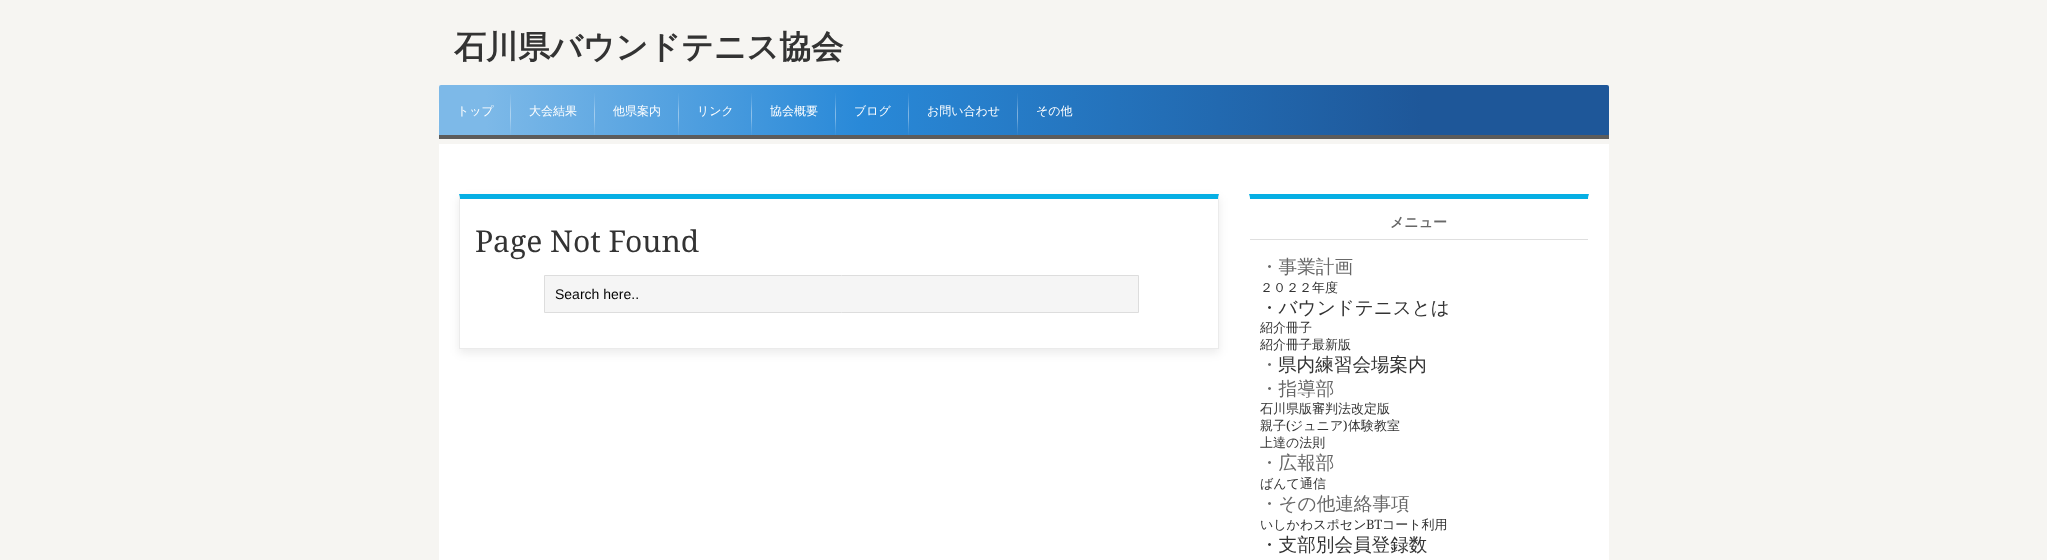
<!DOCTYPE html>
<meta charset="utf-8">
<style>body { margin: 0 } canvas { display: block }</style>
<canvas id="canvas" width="2047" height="560"></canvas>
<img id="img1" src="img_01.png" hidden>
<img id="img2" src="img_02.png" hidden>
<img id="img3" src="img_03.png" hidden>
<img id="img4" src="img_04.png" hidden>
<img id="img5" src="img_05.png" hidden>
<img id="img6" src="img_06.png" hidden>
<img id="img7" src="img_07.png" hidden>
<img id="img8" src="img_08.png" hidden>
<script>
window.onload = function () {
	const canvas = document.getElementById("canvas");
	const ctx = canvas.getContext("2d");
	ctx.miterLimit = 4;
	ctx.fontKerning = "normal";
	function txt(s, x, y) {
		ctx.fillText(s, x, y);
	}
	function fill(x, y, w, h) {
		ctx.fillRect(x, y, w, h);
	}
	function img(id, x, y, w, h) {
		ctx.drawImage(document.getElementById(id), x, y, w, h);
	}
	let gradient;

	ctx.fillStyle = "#F6F5F2";
	fill(0, 0, 2047, 560);
	gradient = ctx.createLinearGradient(439, 110, 1609, 110);
	gradient.addColorStop(0.04, "#7DB9E8");
	gradient.addColorStop(0.36, "#2989D8");
	gradient.addColorStop(0.84, "#1E5799");
	ctx.fillStyle = gradient;
	ctx.beginPath();
	ctx.roundRect(439, 85, 1170, 54, [2, 2, 0, 0]);
	ctx.fill();
	ctx.fillStyle = "#5C5C5C";
	fill(439, 135, 1170, 4);
	img("img1", 438, 103, 1, 23);
	img("img2", 510, 94, 1, 41);
	img("img3", 594, 93, 1, 42);
	img("img4", 678, 93, 1, 42);
	img("img5", 751, 93, 1, 42);
	img("img6", 835, 93, 1, 42);
	img("img7", 908, 93, 1, 42);
	img("img8", 1017, 93, 1, 42);
	ctx.fillStyle = "#FFFFFF";
	fill(439, 144, 1170, 416);
	ctx.save();
	ctx.beginPath();
	ctx.moveTo(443, 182);
	ctx.lineTo(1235, 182);
	ctx.lineTo(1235, 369);
	ctx.lineTo(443, 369);
	ctx.closePath();
	ctx.moveTo(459, 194);
	ctx.lineTo(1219, 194);
	ctx.lineTo(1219, 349);
	ctx.lineTo(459, 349);
	ctx.closePath();
	ctx.clip("evenodd");
	ctx.fillStyle = "rgba(0, 0, 0, 0.08)";
	ctx.filter = "blur(5px)";
	ctx.beginPath();
	ctx.rect(459, 198, 760, 155);
	ctx.fill();
	ctx.filter = "none";
	ctx.restore();
	ctx.fillStyle = "#06AFE4";
	ctx.beginPath();
	ctx.moveTo(459, 194);
	ctx.lineTo(1219, 194);
	ctx.lineTo(1218, 199);
	ctx.lineTo(460, 199);
	ctx.closePath();
	ctx.fill();
	ctx.fillStyle = "#EBEBEB";
	ctx.beginPath();
	ctx.moveTo(1219, 194);
	ctx.lineTo(1219, 349);
	ctx.lineTo(1218, 348);
	ctx.lineTo(1218, 199);
	ctx.closePath();
	ctx.fill();
	fill(459, 348, 760, 1);
	ctx.beginPath();
	ctx.moveTo(459, 349);
	ctx.lineTo(459, 194);
	ctx.lineTo(460, 199);
	ctx.lineTo(460, 348);
	ctx.closePath();
	ctx.fill();
	ctx.fillStyle = "#F5F5F5";
	ctx.beginPath();
	ctx.rect(544.5, 275.5, 594, 37);
	ctx.fill();
	ctx.strokeStyle = "#DDDDDD";
	ctx.stroke();
	ctx.fillStyle = "#06AFE4";
	ctx.beginPath();
	ctx.moveTo(1249, 194);
	ctx.lineTo(1589, 194);
	ctx.lineTo(1588, 199);
	ctx.lineTo(1250, 199);
	ctx.closePath();
	ctx.fill();
	ctx.fillStyle = "#FFFFFF";
	ctx.beginPath();
	ctx.moveTo(1589, 194);
	ctx.lineTo(1589, 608);
	ctx.lineTo(1588, 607);
	ctx.lineTo(1588, 199);
	ctx.closePath();
	ctx.fill();
	ctx.beginPath();
	ctx.moveTo(1249, 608);
	ctx.lineTo(1249, 194);
	ctx.lineTo(1250, 199);
	ctx.lineTo(1250, 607);
	ctx.closePath();
	ctx.fill();
	ctx.fillStyle = "#DFDFDF";
	fill(1250, 239, 338, 1);
	ctx.font = "bold 32px WenQuanYi Zen Hei";
	ctx.fillStyle = "#333333";
	txt("石川県バウンドテニス協会", 454, 58);
	ctx.font = "500 12px WenQuanYi Zen Hei";
	ctx.fillStyle = "#FFFFFF";
	txt("トップ", 457, 115);
	txt("大会結果", 529, 115);
	txt("他県案内", 613, 115);
	txt("リンク", 697, 115);
	txt("協会概要", 770, 115);
	txt("ブログ", 854, 115);
	txt("お問い合わせ", 927, 115);
	txt("その他", 1036, 115);
	ctx.font = "30px Droid Serif";
	ctx.fillStyle = "#333333";
	txt("Page Not Found", 475, 252);
	ctx.font = "14px Liberation Sans";
	ctx.fillStyle = "#000000";
	txt("Search here..", 555, 299);
	ctx.font = "bold 14px WenQuanYi Zen Hei";
	ctx.fillStyle = "#686868";
	txt("メニュー", 1390, 227);
	ctx.font = "500 18.6px WenQuanYi Zen Hei";
	txt("・事業計画", 1260, 273);
	ctx.font = "500 13px WenQuanYi Zen Hei";
	ctx.fillStyle = "#333333";
	txt("２０２２年度", 1260, 292);
	ctx.font = "500 18.6px WenQuanYi Zen Hei";
	txt("・バウンドテニスとは", 1260, 314);
	ctx.font = "500 13px WenQuanYi Zen Hei";
	txt("紹介冊子", 1260, 332);
	txt("紹介冊子最新版", 1260, 349);
	ctx.font = "500 18.6px WenQuanYi Zen Hei";
	ctx.fillStyle = "#686868";
	txt("・", 1260, 371);
	ctx.fillStyle = "#333333";
	txt("県内練習会場案内", 1278, 371);
	ctx.fillStyle = "#686868";
	txt("・指導部", 1260, 395);
	ctx.font = "500 13px WenQuanYi Zen Hei";
	ctx.fillStyle = "#333333";
	txt("石川県版審判法改定版", 1260, 413);
	txt("親子", 1260, 430);
	ctx.font = "13px Droid Serif";
	txt("(", 1286, 430);
	ctx.font = "500 13px WenQuanYi Zen Hei";
	txt("ジュニア", 1290, 430);
	ctx.font = "13px Droid Serif";
	txt(")", 1343, 430);
	ctx.font = "500 13px WenQuanYi Zen Hei";
	txt("体験教室", 1348, 430);
	txt("上達の法則", 1260, 447);
	ctx.font = "500 18.6px WenQuanYi Zen Hei";
	ctx.fillStyle = "#686868";
	txt("・広報部", 1260, 469);
	ctx.font = "500 13px WenQuanYi Zen Hei";
	ctx.fillStyle = "#333333";
	txt("ばんて通信", 1260, 488);
	ctx.font = "500 18.6px WenQuanYi Zen Hei";
	ctx.fillStyle = "#686868";
	txt("・その他連絡事項", 1260, 510);
	ctx.font = "500 13px WenQuanYi Zen Hei";
	ctx.fillStyle = "#333333";
	txt("いしかわスポセン", 1260, 529);
	ctx.font = "13px Droid Serif";
	txt("BT", 1366, 529);
	ctx.font = "500 13px WenQuanYi Zen Hei";
	txt("コート利用", 1382, 529);
	ctx.font = "500 18.6px WenQuanYi Zen Hei";
	txt("・支部別会員登録数", 1260, 551);
};
</script>
